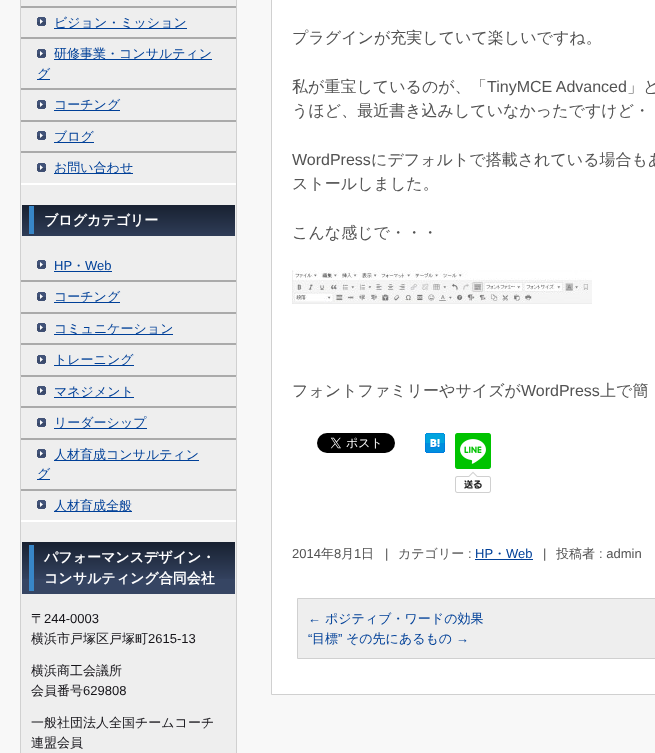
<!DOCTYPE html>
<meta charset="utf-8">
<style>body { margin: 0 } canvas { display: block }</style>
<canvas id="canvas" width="655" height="753"></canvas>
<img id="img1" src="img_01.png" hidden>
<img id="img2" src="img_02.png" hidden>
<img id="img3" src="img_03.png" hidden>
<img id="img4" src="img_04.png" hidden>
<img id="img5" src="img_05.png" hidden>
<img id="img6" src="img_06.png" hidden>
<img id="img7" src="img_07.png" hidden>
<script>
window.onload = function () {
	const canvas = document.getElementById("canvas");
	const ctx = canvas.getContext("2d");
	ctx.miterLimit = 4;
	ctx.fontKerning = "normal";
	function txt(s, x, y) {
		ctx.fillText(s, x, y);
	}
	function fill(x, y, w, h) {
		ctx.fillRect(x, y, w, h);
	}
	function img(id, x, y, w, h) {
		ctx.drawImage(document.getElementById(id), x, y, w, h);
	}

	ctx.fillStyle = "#F8F8F8";
	fill(0, 0, 655, 753);
	ctx.fillStyle = "#EEEEEE";
	ctx.beginPath();
	ctx.rect(20.5, -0.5, 216, 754);
	ctx.fill();
	ctx.strokeStyle = "#D0D0D0";
	ctx.stroke();
	ctx.fillStyle = "#AAAAAA";
	fill(21, 6, 215, 2);
	img("img1", 37, 17, 9, 9);
	ctx.fillStyle = "#004098";
	fill(54, 28, 133, 1);
	ctx.fillStyle = "#AAAAAA";
	fill(21, 37, 215, 2);
	img("img1", 37, 49, 9, 9);
	ctx.fillStyle = "#004098";
	fill(54, 59, 158, 1);
	fill(37, 79, 13, 1);
	ctx.fillStyle = "#AAAAAA";
	fill(21, 88, 215, 2);
	img("img1", 37, 100, 9, 9);
	ctx.fillStyle = "#004098";
	fill(54, 110, 66, 1);
	ctx.fillStyle = "#AAAAAA";
	fill(21, 120, 215, 2);
	img("img1", 37, 131, 9, 9);
	ctx.fillStyle = "#004098";
	fill(54, 142, 40, 1);
	ctx.fillStyle = "#AAAAAA";
	fill(21, 151, 215, 2);
	ctx.fillStyle = "#FFFFFF";
	fill(21, 183, 215, 2);
	img("img1", 37, 163, 9, 9);
	ctx.fillStyle = "#004098";
	fill(54, 173, 79, 1);
	img("img2", 22, 205, 213, 31);
	ctx.fillStyle = "#3886C7";
	fill(29, 206, 5, 28);
	img("img1", 37, 260, 9, 9);
	ctx.fillStyle = "#004098";
	fill(54, 271, 58, 1);
	ctx.fillStyle = "#AAAAAA";
	fill(21, 280, 215, 2);
	img("img1", 37, 292, 9, 9);
	ctx.fillStyle = "#004098";
	fill(54, 302, 66, 1);
	ctx.fillStyle = "#AAAAAA";
	fill(21, 312, 215, 2);
	img("img1", 37, 323, 9, 9);
	ctx.fillStyle = "#004098";
	fill(54, 334, 119, 1);
	ctx.fillStyle = "#AAAAAA";
	fill(21, 343, 215, 2);
	img("img1", 37, 355, 9, 9);
	ctx.fillStyle = "#004098";
	fill(54, 365, 80, 1);
	ctx.fillStyle = "#AAAAAA";
	fill(21, 375, 215, 2);
	img("img1", 37, 386, 9, 9);
	ctx.fillStyle = "#004098";
	fill(54, 397, 80, 1);
	ctx.fillStyle = "#AAAAAA";
	fill(21, 406, 215, 2);
	img("img1", 37, 418, 9, 9);
	ctx.fillStyle = "#004098";
	fill(54, 428, 93, 1);
	ctx.fillStyle = "#AAAAAA";
	fill(21, 438, 215, 2);
	img("img1", 37, 449, 9, 9);
	ctx.fillStyle = "#004098";
	fill(54, 460, 145, 1);
	fill(37, 479, 13, 1);
	ctx.fillStyle = "#AAAAAA";
	fill(21, 489, 215, 2);
	ctx.fillStyle = "#FFFFFF";
	fill(21, 520, 215, 2);
	img("img1", 37, 500, 9, 9);
	ctx.fillStyle = "#004098";
	fill(54, 511, 78, 1);
	ctx.fillStyle = "#364563";
	fill(22, 579, 213, 15);
	img("img3", 22, 542, 213, 37);
	ctx.fillStyle = "#3886C7";
	fill(29, 545, 5, 46);
	ctx.fillStyle = "#FFFFFF";
	ctx.beginPath();
	ctx.rect(271.5, -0.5, 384, 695);
	ctx.fill();
	ctx.stroke();
	img("img4", 292, 270, 300, 34);
	img("img5", 317, 433, 78, 20);
	img("img6", 425, 433, 20, 20);
	img("img7", 455, 433, 36, 60);
	ctx.fillStyle = "#004098";
	fill(475, 559, 58, 1);
	ctx.fillStyle = "#EEEEEE";
	ctx.beginPath();
	ctx.rect(297.5, 598.5, 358, 60);
	ctx.fill();
	ctx.stroke();
	ctx.font = "500 13px WenQuanYi Zen Hei";
	ctx.fillStyle = "#004098";
	txt("ビジョン・ミッション", 54, 27);
	txt("研修事業・コンサルティン", 54, 58);
	txt("グ", 37, 78);
	txt("コーチング", 54, 109);
	txt("ブログ", 54, 141);
	txt("お問い合わせ", 54, 172);
	ctx.font = "bold 14px WenQuanYi Zen Hei";
	ctx.fillStyle = "#FFFFFF";
	txt("ブログカテゴリー", 44, 225);
	ctx.font = "13px Liberation Sans";
	ctx.fillStyle = "#004098";
	txt("HP", 54, 270);
	ctx.font = "500 13px WenQuanYi Zen Hei";
	txt("・", 72, 270);
	ctx.font = "13px Liberation Sans";
	txt("Web", 85, 270);
	ctx.font = "500 13px WenQuanYi Zen Hei";
	txt("コーチング", 54, 301);
	txt("コミュニケーション", 54, 333);
	txt("トレーニング", 54, 364);
	txt("マネジメント", 54, 396);
	txt("リーダーシップ", 54, 427);
	txt("人材育成コンサルティン", 54, 459);
	txt("グ", 37, 478);
	txt("人材育成全般", 54, 510);
	ctx.font = "bold 14px WenQuanYi Zen Hei";
	ctx.fillStyle = "#FFFFFF";
	txt("パフォーマンスデザイン・", 44, 562);
	txt("コンサルティング合同会社", 44, 583);
	ctx.font = "500 13px WenQuanYi Zen Hei";
	ctx.fillStyle = "#141318";
	txt("〒", 31, 623);
	ctx.font = "13px Liberation Sans";
	txt("244-0003", 44, 623);
	ctx.font = "500 13px WenQuanYi Zen Hei";
	txt("横浜市戸塚区戸塚町", 31, 643);
	ctx.font = "13px Liberation Sans";
	txt("2615-13", 148, 643);
	ctx.font = "500 13px WenQuanYi Zen Hei";
	txt("横浜商工会議所", 31, 675);
	txt("会員番号", 31, 695);
	ctx.font = "13px Liberation Sans";
	txt("629808", 83, 695);
	ctx.font = "500 13px WenQuanYi Zen Hei";
	txt("一般社団法人全国チームコーチ", 31, 727);
	txt("連盟会員", 31, 747);
	ctx.font = "500 16px WenQuanYi Zen Hei";
	ctx.fillStyle = "#535353";
	txt("プラグインが充実していて楽しいですね。", 292, 43);
	txt("私が重宝しているのが、「", 292, 92);
	ctx.font = "16px Liberation Sans";
	txt("TinyMCE Advanced", 487, 92);
	ctx.font = "500 16px WenQuanYi Zen Hei";
	txt("」と", 627, 92);
	txt("うほど、最近書き込みしていなかったですけど・", 292, 116);
	ctx.font = "16px Liberation Sans";
	txt("WordPress", 292, 165);
	ctx.font = "500 16px WenQuanYi Zen Hei";
	txt("にデフォルトで搭載されている場合もあ", 371, 165);
	txt("ストールしました。", 292, 189);
	txt("こんな感じで・・・", 292, 238);
	txt("フォントファミリーやサイズが", 292, 396);
	ctx.font = "16px Liberation Sans";
	txt("WordPress", 521, 396);
	ctx.font = "500 16px WenQuanYi Zen Hei";
	txt("上で簡", 600, 396);
	ctx.font = "13px Liberation Sans";
	txt("2014", 292, 558);
	ctx.font = "500 13px WenQuanYi Zen Hei";
	txt("年", 321, 558);
	ctx.font = "13px Liberation Sans";
	txt("8", 334, 558);
	ctx.font = "500 13px WenQuanYi Zen Hei";
	txt("月", 341, 558);
	ctx.font = "13px Liberation Sans";
	txt("1", 354, 558);
	ctx.font = "500 13px WenQuanYi Zen Hei";
	txt("日", 361, 558);
	ctx.font = "13px Liberation Sans";
	txt("|", 385, 558);
	ctx.font = "500 13px WenQuanYi Zen Hei";
	txt("カテゴリー", 398, 558);
	ctx.font = "13px Liberation Sans";
	txt(":", 468, 558);
	ctx.fillStyle = "#004098";
	txt("HP", 475, 558);
	ctx.font = "500 13px WenQuanYi Zen Hei";
	txt("・", 493, 558);
	ctx.font = "13px Liberation Sans";
	txt("Web", 506, 558);
	ctx.fillStyle = "#535353";
	txt("|", 543, 558);
	ctx.font = "500 13px WenQuanYi Zen Hei";
	txt("投稿者", 556, 558);
	ctx.font = "13px Liberation Sans";
	txt(": admin", 599, 558);
	ctx.fillStyle = "#004098";
	txt("←", 308, 623);
	ctx.font = "500 13px WenQuanYi Zen Hei";
	txt("ポジティブ・ワードの効果", 325, 623);
	ctx.font = "13px Liberation Sans";
	txt("“", 308, 643);
	ctx.font = "500 13px WenQuanYi Zen Hei";
	txt("目標", 312, 643);
	ctx.font = "13px Liberation Sans";
	txt("”", 338, 643);
	ctx.font = "500 13px WenQuanYi Zen Hei";
	txt("その先にあるもの", 346, 643);
	ctx.font = "13px Liberation Sans";
	txt("→", 456, 643);
};
</script>
